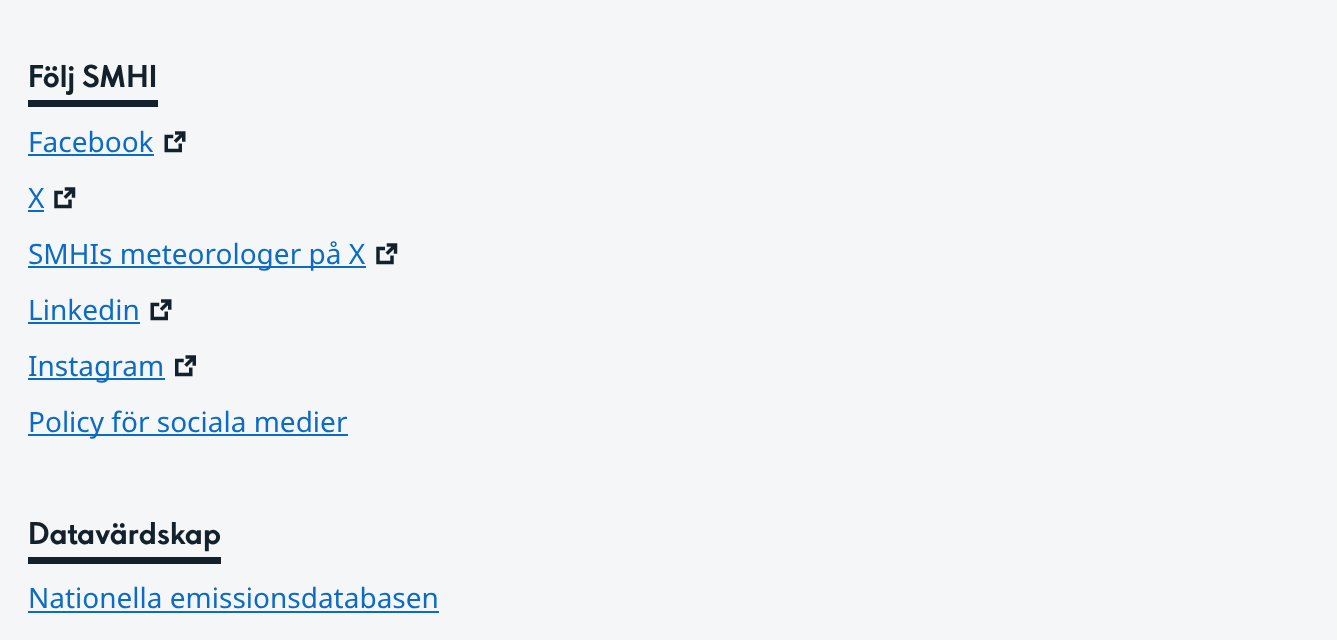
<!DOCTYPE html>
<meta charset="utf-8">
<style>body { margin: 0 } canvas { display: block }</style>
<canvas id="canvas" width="1337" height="640"></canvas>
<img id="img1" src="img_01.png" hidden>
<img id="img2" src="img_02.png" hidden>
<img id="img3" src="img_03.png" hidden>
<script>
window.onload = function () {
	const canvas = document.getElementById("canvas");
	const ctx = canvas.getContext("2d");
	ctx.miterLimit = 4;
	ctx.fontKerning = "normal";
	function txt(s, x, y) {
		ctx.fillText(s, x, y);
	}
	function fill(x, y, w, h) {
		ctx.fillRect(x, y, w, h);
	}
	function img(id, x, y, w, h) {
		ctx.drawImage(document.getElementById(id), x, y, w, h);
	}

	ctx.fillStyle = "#F5F6F7";
	fill(0, 0, 1337, 640);
	ctx.fillStyle = "#12212B";
	fill(28, 100, 130, 7);
	ctx.fillStyle = "#0C6BC4";
	fill(28, 154, 126, 2);
	img("img1", 164, 131, 22, 22);
	fill(28, 210, 16, 2);
	img("img2", 54, 187, 22, 22);
	fill(28, 266, 338, 2);
	img("img2", 376, 243, 22, 22);
	fill(28, 322, 112, 2);
	img("img1", 150, 299, 22, 22);
	fill(28, 378, 137, 2);
	img("img3", 175, 355, 21, 22);
	fill(28, 434, 320, 2);
	ctx.fillStyle = "#12212B";
	fill(28, 557, 193, 7);
	ctx.fillStyle = "#0C6BC4";
	fill(28, 611, 411, 2);
	ctx.font = "bold 31.5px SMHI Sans";
	ctx.fillStyle = "#12212B";
	txt("Följ SMHI", 28, 87);
	ctx.font = "28px Noto Sans";
	ctx.fillStyle = "#0C6BC4";
	txt("Facebook", 28, 152);
	txt("X", 28, 208);
	txt("SMHIs meteorologer på X", 28, 264);
	txt("Linkedin", 28, 320);
	txt("Instagram", 28, 376);
	txt("Policy för sociala medier", 28, 432);
	ctx.font = "bold 31.5px SMHI Sans";
	ctx.fillStyle = "#12212B";
	txt("Datavärdskap", 28, 544);
	ctx.font = "28px Noto Sans";
	ctx.fillStyle = "#0C6BC4";
	txt("Nationella emissionsdatabasen", 28, 608);
};
</script>
